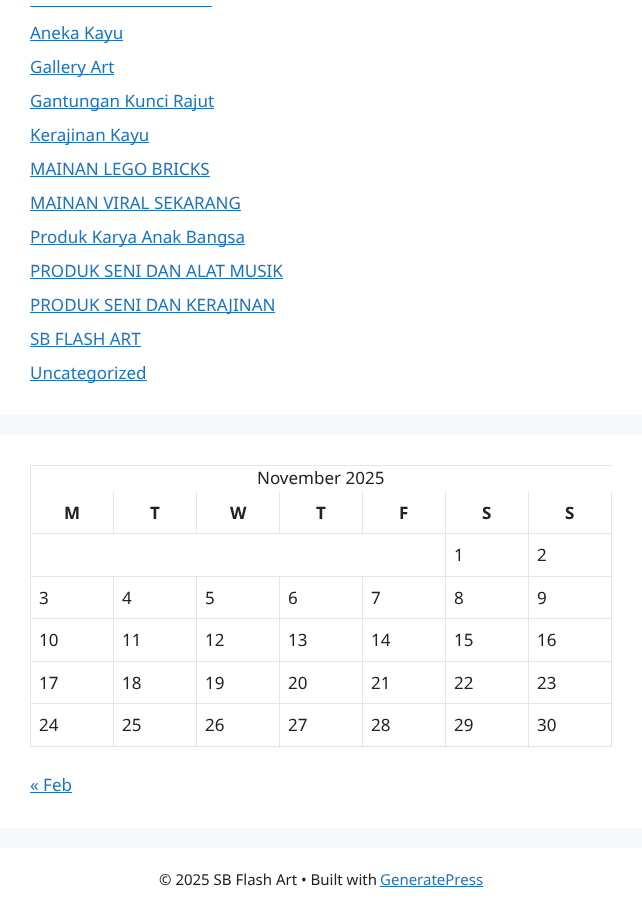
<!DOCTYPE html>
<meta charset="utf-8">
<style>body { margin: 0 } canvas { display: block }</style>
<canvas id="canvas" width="642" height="910"></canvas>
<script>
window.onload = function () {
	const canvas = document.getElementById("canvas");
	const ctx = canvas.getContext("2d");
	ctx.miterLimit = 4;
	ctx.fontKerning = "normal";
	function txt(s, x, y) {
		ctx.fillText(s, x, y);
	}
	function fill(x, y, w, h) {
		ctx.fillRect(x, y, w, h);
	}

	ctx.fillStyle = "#F7F8F9";
	fill(0, 0, 642, 910);
	ctx.fillStyle = "#FFFFFF";
	fill(0, 0, 642, 415);
	ctx.fillStyle = "#1E73BE";
	fill(30, 6, 182, 1);
	fill(30, 40, 93, 1);
	fill(30, 74, 84, 1);
	fill(30, 108, 184, 1);
	fill(30, 142, 119, 1);
	fill(30, 176, 180, 1);
	fill(30, 210, 211, 1);
	fill(30, 244, 215, 1);
	fill(30, 278, 253, 1);
	fill(30, 312, 245, 1);
	fill(30, 346, 111, 1);
	fill(30, 380, 117, 1);
	ctx.fillStyle = "#FFFFFF";
	fill(0, 435, 642, 393);
	ctx.fillStyle = "#E6E6E6";
	ctx.beginPath();
	ctx.moveTo(30, 465);
	ctx.lineTo(612, 465);
	ctx.lineTo(612, 466);
	ctx.lineTo(31, 466);
	ctx.closePath();
	ctx.fill();
	ctx.fillStyle = "rgba(0, 0, 0, 0.1)";
	ctx.beginPath();
	ctx.moveTo(30, 747);
	ctx.lineTo(30, 465);
	ctx.lineTo(31, 466);
	ctx.lineTo(31, 747);
	ctx.closePath();
	ctx.fill();
	ctx.fillStyle = "#E6E6E6";
	ctx.beginPath();
	ctx.moveTo(114, 492);
	ctx.lineTo(114, 534);
	ctx.lineTo(113, 533);
	ctx.lineTo(113, 492);
	ctx.closePath();
	ctx.fill();
	ctx.fillStyle = "rgba(0, 0, 0, 0.1)";
	ctx.beginPath();
	ctx.moveTo(114, 534);
	ctx.lineTo(31, 534);
	ctx.lineTo(31, 533);
	ctx.lineTo(113, 533);
	ctx.closePath();
	ctx.fill();
	ctx.fillStyle = "#E6E6E6";
	ctx.beginPath();
	ctx.moveTo(197, 492);
	ctx.lineTo(197, 534);
	ctx.lineTo(196, 533);
	ctx.lineTo(196, 492);
	ctx.closePath();
	ctx.fill();
	ctx.fillStyle = "rgba(0, 0, 0, 0.1)";
	ctx.beginPath();
	ctx.moveTo(197, 534);
	ctx.lineTo(114, 534);
	ctx.lineTo(114, 533);
	ctx.lineTo(196, 533);
	ctx.closePath();
	ctx.fill();
	ctx.fillStyle = "#E6E6E6";
	ctx.beginPath();
	ctx.moveTo(280, 492);
	ctx.lineTo(280, 534);
	ctx.lineTo(279, 533);
	ctx.lineTo(279, 492);
	ctx.closePath();
	ctx.fill();
	ctx.fillStyle = "rgba(0, 0, 0, 0.1)";
	ctx.beginPath();
	ctx.moveTo(280, 534);
	ctx.lineTo(197, 534);
	ctx.lineTo(197, 533);
	ctx.lineTo(279, 533);
	ctx.closePath();
	ctx.fill();
	ctx.fillStyle = "#E6E6E6";
	ctx.beginPath();
	ctx.moveTo(363, 492);
	ctx.lineTo(363, 534);
	ctx.lineTo(362, 533);
	ctx.lineTo(362, 492);
	ctx.closePath();
	ctx.fill();
	ctx.fillStyle = "rgba(0, 0, 0, 0.1)";
	ctx.beginPath();
	ctx.moveTo(363, 534);
	ctx.lineTo(280, 534);
	ctx.lineTo(280, 533);
	ctx.lineTo(362, 533);
	ctx.closePath();
	ctx.fill();
	ctx.fillStyle = "#E6E6E6";
	ctx.beginPath();
	ctx.moveTo(446, 492);
	ctx.lineTo(446, 534);
	ctx.lineTo(445, 533);
	ctx.lineTo(445, 492);
	ctx.closePath();
	ctx.fill();
	ctx.fillStyle = "rgba(0, 0, 0, 0.1)";
	ctx.beginPath();
	ctx.moveTo(446, 534);
	ctx.lineTo(363, 534);
	ctx.lineTo(363, 533);
	ctx.lineTo(445, 533);
	ctx.closePath();
	ctx.fill();
	ctx.fillStyle = "#E6E6E6";
	ctx.beginPath();
	ctx.moveTo(529, 492);
	ctx.lineTo(529, 534);
	ctx.lineTo(528, 533);
	ctx.lineTo(528, 492);
	ctx.closePath();
	ctx.fill();
	ctx.fillStyle = "rgba(0, 0, 0, 0.1)";
	ctx.beginPath();
	ctx.moveTo(529, 534);
	ctx.lineTo(446, 534);
	ctx.lineTo(446, 533);
	ctx.lineTo(528, 533);
	ctx.closePath();
	ctx.fill();
	ctx.fillStyle = "#E6E6E6";
	ctx.beginPath();
	ctx.moveTo(612, 492);
	ctx.lineTo(612, 534);
	ctx.lineTo(611, 533);
	ctx.lineTo(611, 492);
	ctx.closePath();
	ctx.fill();
	ctx.fillStyle = "rgba(0, 0, 0, 0.1)";
	ctx.beginPath();
	ctx.moveTo(612, 534);
	ctx.lineTo(529, 534);
	ctx.lineTo(529, 533);
	ctx.lineTo(611, 533);
	ctx.closePath();
	ctx.fill();
	ctx.fillStyle = "#E6E6E6";
	ctx.beginPath();
	ctx.moveTo(446, 534);
	ctx.lineTo(446, 577);
	ctx.lineTo(445, 576);
	ctx.lineTo(445, 534);
	ctx.closePath();
	ctx.fill();
	ctx.fillStyle = "rgba(0, 0, 0, 0.1)";
	ctx.beginPath();
	ctx.moveTo(446, 577);
	ctx.lineTo(31, 577);
	ctx.lineTo(31, 576);
	ctx.lineTo(445, 576);
	ctx.closePath();
	ctx.fill();
	ctx.fillStyle = "#E6E6E6";
	ctx.beginPath();
	ctx.moveTo(529, 534);
	ctx.lineTo(529, 577);
	ctx.lineTo(528, 576);
	ctx.lineTo(528, 534);
	ctx.closePath();
	ctx.fill();
	ctx.fillStyle = "rgba(0, 0, 0, 0.1)";
	ctx.beginPath();
	ctx.moveTo(529, 577);
	ctx.lineTo(446, 577);
	ctx.lineTo(446, 576);
	ctx.lineTo(528, 576);
	ctx.closePath();
	ctx.fill();
	ctx.fillStyle = "#E6E6E6";
	ctx.beginPath();
	ctx.moveTo(612, 534);
	ctx.lineTo(612, 577);
	ctx.lineTo(611, 576);
	ctx.lineTo(611, 534);
	ctx.closePath();
	ctx.fill();
	ctx.fillStyle = "rgba(0, 0, 0, 0.1)";
	ctx.beginPath();
	ctx.moveTo(612, 577);
	ctx.lineTo(529, 577);
	ctx.lineTo(529, 576);
	ctx.lineTo(611, 576);
	ctx.closePath();
	ctx.fill();
	ctx.fillStyle = "#E6E6E6";
	ctx.beginPath();
	ctx.moveTo(114, 577);
	ctx.lineTo(114, 619);
	ctx.lineTo(113, 618);
	ctx.lineTo(113, 577);
	ctx.closePath();
	ctx.fill();
	ctx.fillStyle = "rgba(0, 0, 0, 0.1)";
	ctx.beginPath();
	ctx.moveTo(114, 619);
	ctx.lineTo(31, 619);
	ctx.lineTo(31, 618);
	ctx.lineTo(113, 618);
	ctx.closePath();
	ctx.fill();
	ctx.fillStyle = "#E6E6E6";
	ctx.beginPath();
	ctx.moveTo(197, 577);
	ctx.lineTo(197, 619);
	ctx.lineTo(196, 618);
	ctx.lineTo(196, 577);
	ctx.closePath();
	ctx.fill();
	ctx.fillStyle = "rgba(0, 0, 0, 0.1)";
	ctx.beginPath();
	ctx.moveTo(197, 619);
	ctx.lineTo(114, 619);
	ctx.lineTo(114, 618);
	ctx.lineTo(196, 618);
	ctx.closePath();
	ctx.fill();
	ctx.fillStyle = "#E6E6E6";
	ctx.beginPath();
	ctx.moveTo(280, 577);
	ctx.lineTo(280, 619);
	ctx.lineTo(279, 618);
	ctx.lineTo(279, 577);
	ctx.closePath();
	ctx.fill();
	ctx.fillStyle = "rgba(0, 0, 0, 0.1)";
	ctx.beginPath();
	ctx.moveTo(280, 619);
	ctx.lineTo(197, 619);
	ctx.lineTo(197, 618);
	ctx.lineTo(279, 618);
	ctx.closePath();
	ctx.fill();
	ctx.fillStyle = "#E6E6E6";
	ctx.beginPath();
	ctx.moveTo(363, 577);
	ctx.lineTo(363, 619);
	ctx.lineTo(362, 618);
	ctx.lineTo(362, 577);
	ctx.closePath();
	ctx.fill();
	ctx.fillStyle = "rgba(0, 0, 0, 0.1)";
	ctx.beginPath();
	ctx.moveTo(363, 619);
	ctx.lineTo(280, 619);
	ctx.lineTo(280, 618);
	ctx.lineTo(362, 618);
	ctx.closePath();
	ctx.fill();
	ctx.fillStyle = "#E6E6E6";
	ctx.beginPath();
	ctx.moveTo(446, 577);
	ctx.lineTo(446, 619);
	ctx.lineTo(445, 618);
	ctx.lineTo(445, 577);
	ctx.closePath();
	ctx.fill();
	ctx.fillStyle = "rgba(0, 0, 0, 0.1)";
	ctx.beginPath();
	ctx.moveTo(446, 619);
	ctx.lineTo(363, 619);
	ctx.lineTo(363, 618);
	ctx.lineTo(445, 618);
	ctx.closePath();
	ctx.fill();
	ctx.fillStyle = "#E6E6E6";
	ctx.beginPath();
	ctx.moveTo(529, 577);
	ctx.lineTo(529, 619);
	ctx.lineTo(528, 618);
	ctx.lineTo(528, 577);
	ctx.closePath();
	ctx.fill();
	ctx.fillStyle = "rgba(0, 0, 0, 0.1)";
	ctx.beginPath();
	ctx.moveTo(529, 619);
	ctx.lineTo(446, 619);
	ctx.lineTo(446, 618);
	ctx.lineTo(528, 618);
	ctx.closePath();
	ctx.fill();
	ctx.fillStyle = "#E6E6E6";
	ctx.beginPath();
	ctx.moveTo(612, 577);
	ctx.lineTo(612, 619);
	ctx.lineTo(611, 618);
	ctx.lineTo(611, 577);
	ctx.closePath();
	ctx.fill();
	ctx.fillStyle = "rgba(0, 0, 0, 0.1)";
	ctx.beginPath();
	ctx.moveTo(612, 619);
	ctx.lineTo(529, 619);
	ctx.lineTo(529, 618);
	ctx.lineTo(611, 618);
	ctx.closePath();
	ctx.fill();
	ctx.fillStyle = "#E6E6E6";
	ctx.beginPath();
	ctx.moveTo(114, 619);
	ctx.lineTo(114, 662);
	ctx.lineTo(113, 661);
	ctx.lineTo(113, 619);
	ctx.closePath();
	ctx.fill();
	ctx.fillStyle = "rgba(0, 0, 0, 0.1)";
	ctx.beginPath();
	ctx.moveTo(114, 662);
	ctx.lineTo(31, 662);
	ctx.lineTo(31, 661);
	ctx.lineTo(113, 661);
	ctx.closePath();
	ctx.fill();
	ctx.fillStyle = "#E6E6E6";
	ctx.beginPath();
	ctx.moveTo(197, 619);
	ctx.lineTo(197, 662);
	ctx.lineTo(196, 661);
	ctx.lineTo(196, 619);
	ctx.closePath();
	ctx.fill();
	ctx.fillStyle = "rgba(0, 0, 0, 0.1)";
	ctx.beginPath();
	ctx.moveTo(197, 662);
	ctx.lineTo(114, 662);
	ctx.lineTo(114, 661);
	ctx.lineTo(196, 661);
	ctx.closePath();
	ctx.fill();
	ctx.fillStyle = "#E6E6E6";
	ctx.beginPath();
	ctx.moveTo(280, 619);
	ctx.lineTo(280, 662);
	ctx.lineTo(279, 661);
	ctx.lineTo(279, 619);
	ctx.closePath();
	ctx.fill();
	ctx.fillStyle = "rgba(0, 0, 0, 0.1)";
	ctx.beginPath();
	ctx.moveTo(280, 662);
	ctx.lineTo(197, 662);
	ctx.lineTo(197, 661);
	ctx.lineTo(279, 661);
	ctx.closePath();
	ctx.fill();
	ctx.fillStyle = "#E6E6E6";
	ctx.beginPath();
	ctx.moveTo(363, 619);
	ctx.lineTo(363, 662);
	ctx.lineTo(362, 661);
	ctx.lineTo(362, 619);
	ctx.closePath();
	ctx.fill();
	ctx.fillStyle = "rgba(0, 0, 0, 0.1)";
	ctx.beginPath();
	ctx.moveTo(363, 662);
	ctx.lineTo(280, 662);
	ctx.lineTo(280, 661);
	ctx.lineTo(362, 661);
	ctx.closePath();
	ctx.fill();
	ctx.fillStyle = "#E6E6E6";
	ctx.beginPath();
	ctx.moveTo(446, 619);
	ctx.lineTo(446, 662);
	ctx.lineTo(445, 661);
	ctx.lineTo(445, 619);
	ctx.closePath();
	ctx.fill();
	ctx.fillStyle = "rgba(0, 0, 0, 0.1)";
	ctx.beginPath();
	ctx.moveTo(446, 662);
	ctx.lineTo(363, 662);
	ctx.lineTo(363, 661);
	ctx.lineTo(445, 661);
	ctx.closePath();
	ctx.fill();
	ctx.fillStyle = "#E6E6E6";
	ctx.beginPath();
	ctx.moveTo(529, 619);
	ctx.lineTo(529, 662);
	ctx.lineTo(528, 661);
	ctx.lineTo(528, 619);
	ctx.closePath();
	ctx.fill();
	ctx.fillStyle = "rgba(0, 0, 0, 0.1)";
	ctx.beginPath();
	ctx.moveTo(529, 662);
	ctx.lineTo(446, 662);
	ctx.lineTo(446, 661);
	ctx.lineTo(528, 661);
	ctx.closePath();
	ctx.fill();
	ctx.fillStyle = "#E6E6E6";
	ctx.beginPath();
	ctx.moveTo(612, 619);
	ctx.lineTo(612, 662);
	ctx.lineTo(611, 661);
	ctx.lineTo(611, 619);
	ctx.closePath();
	ctx.fill();
	ctx.fillStyle = "rgba(0, 0, 0, 0.1)";
	ctx.beginPath();
	ctx.moveTo(612, 662);
	ctx.lineTo(529, 662);
	ctx.lineTo(529, 661);
	ctx.lineTo(611, 661);
	ctx.closePath();
	ctx.fill();
	ctx.fillStyle = "#E6E6E6";
	ctx.beginPath();
	ctx.moveTo(114, 662);
	ctx.lineTo(114, 704);
	ctx.lineTo(113, 703);
	ctx.lineTo(113, 662);
	ctx.closePath();
	ctx.fill();
	ctx.fillStyle = "rgba(0, 0, 0, 0.1)";
	ctx.beginPath();
	ctx.moveTo(114, 704);
	ctx.lineTo(31, 704);
	ctx.lineTo(31, 703);
	ctx.lineTo(113, 703);
	ctx.closePath();
	ctx.fill();
	ctx.fillStyle = "#E6E6E6";
	ctx.beginPath();
	ctx.moveTo(197, 662);
	ctx.lineTo(197, 704);
	ctx.lineTo(196, 703);
	ctx.lineTo(196, 662);
	ctx.closePath();
	ctx.fill();
	ctx.fillStyle = "rgba(0, 0, 0, 0.1)";
	ctx.beginPath();
	ctx.moveTo(197, 704);
	ctx.lineTo(114, 704);
	ctx.lineTo(114, 703);
	ctx.lineTo(196, 703);
	ctx.closePath();
	ctx.fill();
	ctx.fillStyle = "#E6E6E6";
	ctx.beginPath();
	ctx.moveTo(280, 662);
	ctx.lineTo(280, 704);
	ctx.lineTo(279, 703);
	ctx.lineTo(279, 662);
	ctx.closePath();
	ctx.fill();
	ctx.fillStyle = "rgba(0, 0, 0, 0.1)";
	ctx.beginPath();
	ctx.moveTo(280, 704);
	ctx.lineTo(197, 704);
	ctx.lineTo(197, 703);
	ctx.lineTo(279, 703);
	ctx.closePath();
	ctx.fill();
	ctx.fillStyle = "#E6E6E6";
	ctx.beginPath();
	ctx.moveTo(363, 662);
	ctx.lineTo(363, 704);
	ctx.lineTo(362, 703);
	ctx.lineTo(362, 662);
	ctx.closePath();
	ctx.fill();
	ctx.fillStyle = "rgba(0, 0, 0, 0.1)";
	ctx.beginPath();
	ctx.moveTo(363, 704);
	ctx.lineTo(280, 704);
	ctx.lineTo(280, 703);
	ctx.lineTo(362, 703);
	ctx.closePath();
	ctx.fill();
	ctx.fillStyle = "#E6E6E6";
	ctx.beginPath();
	ctx.moveTo(446, 662);
	ctx.lineTo(446, 704);
	ctx.lineTo(445, 703);
	ctx.lineTo(445, 662);
	ctx.closePath();
	ctx.fill();
	ctx.fillStyle = "rgba(0, 0, 0, 0.1)";
	ctx.beginPath();
	ctx.moveTo(446, 704);
	ctx.lineTo(363, 704);
	ctx.lineTo(363, 703);
	ctx.lineTo(445, 703);
	ctx.closePath();
	ctx.fill();
	ctx.fillStyle = "#E6E6E6";
	ctx.beginPath();
	ctx.moveTo(529, 662);
	ctx.lineTo(529, 704);
	ctx.lineTo(528, 703);
	ctx.lineTo(528, 662);
	ctx.closePath();
	ctx.fill();
	ctx.fillStyle = "rgba(0, 0, 0, 0.1)";
	ctx.beginPath();
	ctx.moveTo(529, 704);
	ctx.lineTo(446, 704);
	ctx.lineTo(446, 703);
	ctx.lineTo(528, 703);
	ctx.closePath();
	ctx.fill();
	ctx.fillStyle = "#E6E6E6";
	ctx.beginPath();
	ctx.moveTo(612, 662);
	ctx.lineTo(612, 704);
	ctx.lineTo(611, 703);
	ctx.lineTo(611, 662);
	ctx.closePath();
	ctx.fill();
	ctx.fillStyle = "rgba(0, 0, 0, 0.1)";
	ctx.beginPath();
	ctx.moveTo(612, 704);
	ctx.lineTo(529, 704);
	ctx.lineTo(529, 703);
	ctx.lineTo(611, 703);
	ctx.closePath();
	ctx.fill();
	ctx.fillStyle = "#E6E6E6";
	ctx.beginPath();
	ctx.moveTo(114, 704);
	ctx.lineTo(114, 747);
	ctx.lineTo(113, 746);
	ctx.lineTo(113, 704);
	ctx.closePath();
	ctx.fill();
	ctx.fillStyle = "rgba(0, 0, 0, 0.1)";
	ctx.beginPath();
	ctx.moveTo(114, 747);
	ctx.lineTo(31, 747);
	ctx.lineTo(31, 746);
	ctx.lineTo(113, 746);
	ctx.closePath();
	ctx.fill();
	ctx.fillStyle = "#E6E6E6";
	ctx.beginPath();
	ctx.moveTo(197, 704);
	ctx.lineTo(197, 747);
	ctx.lineTo(196, 746);
	ctx.lineTo(196, 704);
	ctx.closePath();
	ctx.fill();
	ctx.fillStyle = "rgba(0, 0, 0, 0.1)";
	ctx.beginPath();
	ctx.moveTo(197, 747);
	ctx.lineTo(114, 747);
	ctx.lineTo(114, 746);
	ctx.lineTo(196, 746);
	ctx.closePath();
	ctx.fill();
	ctx.fillStyle = "#E6E6E6";
	ctx.beginPath();
	ctx.moveTo(280, 704);
	ctx.lineTo(280, 747);
	ctx.lineTo(279, 746);
	ctx.lineTo(279, 704);
	ctx.closePath();
	ctx.fill();
	ctx.fillStyle = "rgba(0, 0, 0, 0.1)";
	ctx.beginPath();
	ctx.moveTo(280, 747);
	ctx.lineTo(197, 747);
	ctx.lineTo(197, 746);
	ctx.lineTo(279, 746);
	ctx.closePath();
	ctx.fill();
	ctx.fillStyle = "#E6E6E6";
	ctx.beginPath();
	ctx.moveTo(363, 704);
	ctx.lineTo(363, 747);
	ctx.lineTo(362, 746);
	ctx.lineTo(362, 704);
	ctx.closePath();
	ctx.fill();
	ctx.fillStyle = "rgba(0, 0, 0, 0.1)";
	ctx.beginPath();
	ctx.moveTo(363, 747);
	ctx.lineTo(280, 747);
	ctx.lineTo(280, 746);
	ctx.lineTo(362, 746);
	ctx.closePath();
	ctx.fill();
	ctx.fillStyle = "#E6E6E6";
	ctx.beginPath();
	ctx.moveTo(446, 704);
	ctx.lineTo(446, 747);
	ctx.lineTo(445, 746);
	ctx.lineTo(445, 704);
	ctx.closePath();
	ctx.fill();
	ctx.fillStyle = "rgba(0, 0, 0, 0.1)";
	ctx.beginPath();
	ctx.moveTo(446, 747);
	ctx.lineTo(363, 747);
	ctx.lineTo(363, 746);
	ctx.lineTo(445, 746);
	ctx.closePath();
	ctx.fill();
	ctx.fillStyle = "#E6E6E6";
	ctx.beginPath();
	ctx.moveTo(529, 704);
	ctx.lineTo(529, 747);
	ctx.lineTo(528, 746);
	ctx.lineTo(528, 704);
	ctx.closePath();
	ctx.fill();
	ctx.fillStyle = "rgba(0, 0, 0, 0.1)";
	ctx.beginPath();
	ctx.moveTo(529, 747);
	ctx.lineTo(446, 747);
	ctx.lineTo(446, 746);
	ctx.lineTo(528, 746);
	ctx.closePath();
	ctx.fill();
	ctx.fillStyle = "#E6E6E6";
	ctx.beginPath();
	ctx.moveTo(612, 704);
	ctx.lineTo(612, 747);
	ctx.lineTo(611, 746);
	ctx.lineTo(611, 704);
	ctx.closePath();
	ctx.fill();
	ctx.fillStyle = "rgba(0, 0, 0, 0.1)";
	ctx.beginPath();
	ctx.moveTo(612, 747);
	ctx.lineTo(529, 747);
	ctx.lineTo(529, 746);
	ctx.lineTo(611, 746);
	ctx.closePath();
	ctx.fill();
	ctx.fillStyle = "#1E73BE";
	fill(30, 792, 42, 1);
	ctx.fillStyle = "#FFFFFF";
	fill(0, 848, 642, 62);
	ctx.fillStyle = "#1E73BE";
	fill(380, 886, 103, 1);
	ctx.font = "17px Noto Sans";
	txt("Aneka Kayu", 30, 39);
	txt("Gallery Art", 30, 73);
	txt("Gantungan Kunci Rajut", 30, 107);
	txt("Kerajinan Kayu", 30, 141);
	txt("MAINAN LEGO BRICKS", 30, 175);
	txt("MAINAN VIRAL SEKARANG", 30, 209);
	txt("Produk Karya Anak Bangsa", 30, 243);
	txt("PRODUK SENI DAN ALAT MUSIK", 30, 277);
	txt("PRODUK SENI DAN KERAJINAN", 30, 311);
	txt("SB FLASH ART", 30, 345);
	txt("Uncategorized", 30, 379);
	ctx.fillStyle = "#222222";
	txt("November 2025", 257, 484);
	ctx.font = "bold 17px Noto Sans";
	txt("M", 64, 519);
	txt("T", 150, 519);
	txt("W", 230, 519);
	txt("T", 316, 519);
	txt("F", 399, 519);
	txt("S", 482, 519);
	txt("S", 565, 519);
	ctx.font = "17px Noto Sans";
	txt("1", 454, 561);
	txt("2", 537, 561);
	txt("3", 39, 604);
	txt("4", 122, 604);
	txt("5", 205, 604);
	txt("6", 288, 604);
	txt("7", 371, 604);
	txt("8", 454, 604);
	txt("9", 537, 604);
	txt("10", 39, 646);
	txt("11", 122, 646);
	txt("12", 205, 646);
	txt("13", 288, 646);
	txt("14", 371, 646);
	txt("15", 454, 646);
	txt("16", 537, 646);
	txt("17", 39, 689);
	txt("18", 122, 689);
	txt("19", 205, 689);
	txt("20", 288, 689);
	txt("21", 371, 689);
	txt("22", 454, 689);
	txt("23", 537, 689);
	txt("24", 39, 731);
	txt("25", 122, 731);
	txt("26", 205, 731);
	txt("27", 288, 731);
	txt("28", 371, 731);
	txt("29", 454, 731);
	txt("30", 537, 731);
	ctx.fillStyle = "#1E73BE";
	txt("« Feb", 30, 791);
	ctx.font = "15px Noto Sans";
	ctx.fillStyle = "#222222";
	txt("© 2025 SB Flash Art • Built with", 159, 885);
	ctx.fillStyle = "#1E73BE";
	txt("GeneratePress", 380, 885);
};
</script>
